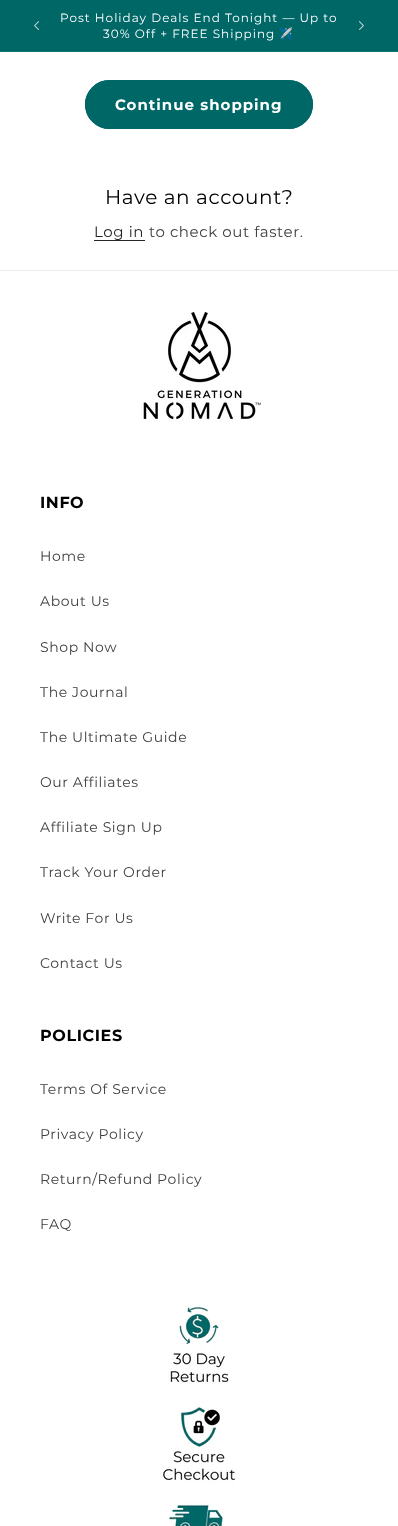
<!DOCTYPE html>
<meta charset="utf-8">
<style>body { margin: 0 } canvas { display: block }</style>
<canvas id="canvas" width="398" height="1526"></canvas>
<img id="img1" src="img_01.png" hidden>
<img id="img2" src="img_02.png" hidden>
<img id="img3" src="img_03.png" hidden>
<img id="img4" src="img_04.png" hidden>
<script>
window.onload = function () {
	const canvas = document.getElementById("canvas");
	const ctx = canvas.getContext("2d");
	ctx.miterLimit = 4;
	ctx.fontKerning = "normal";
	function txt(s, x, y) {
		ctx.fillText(s, x, y);
	}
	function fill(x, y, w, h) {
		ctx.fillRect(x, y, w, h);
	}
	function round(x, y, w, h, r) {
		ctx.beginPath();
		ctx.roundRect(x, y, w, h, r);
		ctx.fill();
	}
	function img(id, x, y, w, h) {
		ctx.drawImage(document.getElementById(id), x, y, w, h);
	}

	ctx.fillStyle = "#FFFFFF";
	fill(0, 0, 398, 1526);
	ctx.fillStyle = "#006767";
	fill(0, 0, 398, 51);
	ctx.fillStyle = "#147373";
	fill(0, 51, 398, 1);
	img("img1", 34, 21, 5, 9);
	img("img2", 359, 21, 5, 9);
	ctx.fillStyle = "#006767";
	round(85, 80, 228, 49, 24.5);
	ctx.beginPath();
	ctx.roundRect(86, 81, 226, 47, 23.5);
	ctx.strokeStyle = "#006767";
	ctx.lineWidth = 2;
	ctx.stroke();
	ctx.fillStyle = "#262626";
	fill(94, 240, 51, 1);
	ctx.fillStyle = "#EBEBEB";
	fill(0, 270, 398, 1);
	img("img3", 140, 310, 121, 112);
	img("img4", 160, 1304, 76, 222);
	ctx.letterSpacing = "1px";
	ctx.font = "12px Montserrat";
	ctx.fillStyle = "#FFFFFF";
	txt("Post Holiday Deals End Tonight — Up to", 60, 22);
	txt("30% Off + FREE Shipping", 103, 38);
	ctx.font = "12px Noto Color Emoji";
	txt("✈️", 278, 38);
	ctx.font = "bold 15px Montserrat";
	txt("Continue shopping", 115, 110);
	ctx.letterSpacing = "0.6px";
	ctx.font = "20px Montserrat";
	ctx.fillStyle = "#000000";
	txt("Have an account?", 105, 204);
	ctx.font = "15px Montserrat";
	ctx.fillStyle = "#262626";
	txt("Log in", 94, 237);
	ctx.fillStyle = "#404040";
	txt("to check out faster.", 149, 237);
	ctx.font = "bold 16px Montserrat";
	ctx.fillStyle = "#000000";
	txt("INFO", 40, 508);
	ctx.font = "14px Montserrat";
	ctx.fillStyle = "#404040";
	txt("Home", 40, 561);
	txt("About Us", 40, 606);
	txt("Shop Now", 40, 652);
	txt("The Journal", 40, 697);
	txt("The Ultimate Guide", 40, 742);
	txt("Our Affiliates", 40, 787);
	txt("Affiliate Sign Up", 40, 832);
	txt("Track Your Order", 40, 877);
	txt("Write For Us", 40, 923);
	txt("Contact Us", 40, 968);
	ctx.font = "bold 16px Montserrat";
	ctx.fillStyle = "#000000";
	txt("POLICIES", 40, 1041);
	ctx.font = "14px Montserrat";
	ctx.fillStyle = "#404040";
	txt("Terms Of Service", 40, 1094);
	txt("Privacy Policy", 40, 1139);
	txt("Return/Refund Policy", 40, 1184);
	txt("FAQ", 40, 1229);
};
</script>
